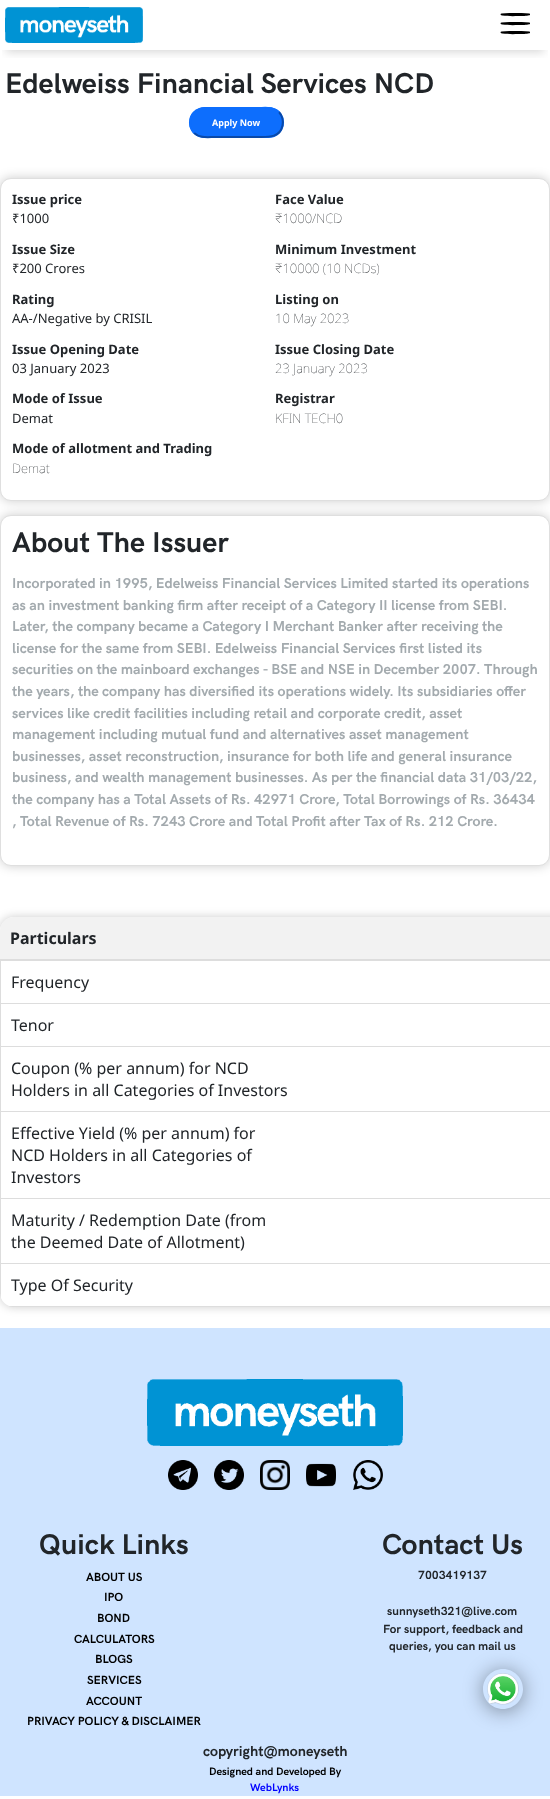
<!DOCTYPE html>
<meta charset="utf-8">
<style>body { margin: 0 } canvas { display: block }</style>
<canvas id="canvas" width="550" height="1799"></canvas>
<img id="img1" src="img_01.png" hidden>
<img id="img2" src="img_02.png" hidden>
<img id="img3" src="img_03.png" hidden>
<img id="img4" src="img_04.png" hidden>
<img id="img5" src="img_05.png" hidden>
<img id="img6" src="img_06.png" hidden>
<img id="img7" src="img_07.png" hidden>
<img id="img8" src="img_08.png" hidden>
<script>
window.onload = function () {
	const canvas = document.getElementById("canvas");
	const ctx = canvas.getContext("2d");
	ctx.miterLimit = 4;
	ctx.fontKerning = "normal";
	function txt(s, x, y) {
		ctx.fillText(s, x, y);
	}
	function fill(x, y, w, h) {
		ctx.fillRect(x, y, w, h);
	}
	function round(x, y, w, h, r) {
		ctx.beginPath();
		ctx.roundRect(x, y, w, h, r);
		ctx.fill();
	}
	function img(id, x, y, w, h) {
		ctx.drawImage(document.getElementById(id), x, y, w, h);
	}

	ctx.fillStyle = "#FFFFFF";
	fill(0, 0, 550, 1799);
	ctx.save();
	ctx.beginPath();
	ctx.rect(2, 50, 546, 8);
	ctx.clip();
	ctx.fillStyle = "rgba(0, 0, 0, 0.16)";
	ctx.filter = "blur(5px)";
	ctx.beginPath();
	ctx.rect(6, 14, 538, 38);
	ctx.fill();
	ctx.filter = "none";
	ctx.restore();
	img("img1", 5, 7, 138, 36);
	ctx.fillStyle = "#000000";
	ctx.beginPath();
	ctx.moveTo(509.5, 13);
	ctx.lineTo(521.5, 13);
	ctx.lineTo(529.5, 13.5);
	ctx.lineTo(530, 14);
	ctx.lineTo(530, 15);
	ctx.bezierCurveTo(530, 15.5, 524, 16, 523, 16);
	ctx.bezierCurveTo(517, 16, 508.5, 16.5, 502.5, 15.5);
	ctx.bezierCurveTo(501, 15.5, 499.5, 14, 501.5, 13.5);
	ctx.closePath();
	ctx.moveTo(509.5, 22);
	ctx.lineTo(521.5, 22);
	ctx.lineTo(529.5, 22.5);
	ctx.lineTo(530, 23);
	ctx.lineTo(530, 24);
	ctx.bezierCurveTo(530, 24.5, 524, 25, 523, 25);
	ctx.bezierCurveTo(517, 25, 508.5, 25.5, 502.5, 24.5);
	ctx.bezierCurveTo(501, 24.5, 499.5, 23, 501.5, 22.5);
	ctx.closePath();
	ctx.moveTo(509.5, 31);
	ctx.lineTo(521.5, 31);
	ctx.lineTo(529.5, 31.5);
	ctx.lineTo(530, 32);
	ctx.lineTo(530, 33);
	ctx.bezierCurveTo(530, 33.5, 524, 34, 523, 34);
	ctx.bezierCurveTo(517, 34, 508.5, 34.5, 502.5, 33.5);
	ctx.bezierCurveTo(501, 33.5, 499.5, 32, 501.5, 31.5);
	ctx.closePath();
	ctx.fill();
	ctx.fillStyle = "#0D6EFD";
	round(189, 107, 95, 31, 15.5);
	ctx.beginPath();
	ctx.moveTo(279, 112);
	ctx.bezierCurveTo(282, 115.5, 283.5, 120.5, 282.5, 125.5);
	ctx.bezierCurveTo(280, 138, 268, 137, 258, 137);
	ctx.lineTo(215, 137);
	ctx.bezierCurveTo(208, 137, 200, 138.5, 194, 133);
	ctx.strokeStyle = "#0949A9";
	ctx.lineWidth = 2;
	ctx.stroke();
	ctx.beginPath();
	ctx.moveTo(194, 133);
	ctx.bezierCurveTo(191, 129.5, 189.5, 124.5, 190.5, 119.5);
	ctx.bezierCurveTo(193, 107, 205, 108, 215, 108);
	ctx.lineTo(258, 108);
	ctx.bezierCurveTo(265, 108, 273, 106.5, 279, 112);
	ctx.strokeStyle = "#0D6EFD";
	ctx.stroke();
	ctx.fillStyle = "rgba(0, 0, 0, 0.2)";
	ctx.filter = "blur(5.5px)";
	ctx.beginPath();
	ctx.roundRect(0, 178, 550, 323, 11);
	ctx.fill();
	ctx.filter = "none";
	ctx.fillStyle = "#FFFFFF";
	ctx.beginPath();
	ctx.roundRect(0.5, 178.5, 549, 322, 10.5);
	ctx.fill();
	ctx.strokeStyle = "#DFDFDF";
	ctx.lineWidth = 1;
	ctx.stroke();
	ctx.fillStyle = "rgba(0, 0, 0, 0.2)";
	ctx.filter = "blur(5.5px)";
	ctx.beginPath();
	ctx.roundRect(0, 515, 550, 351, 11);
	ctx.fill();
	ctx.filter = "none";
	ctx.fillStyle = "#FFFFFF";
	ctx.beginPath();
	ctx.roundRect(0.5, 515.5, 549, 350, 10.5);
	ctx.fill();
	ctx.stroke();
	ctx.save();
	ctx.beginPath();
	ctx.moveTo(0, 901);
	ctx.lineTo(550, 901);
	ctx.lineTo(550, 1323);
	ctx.lineTo(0, 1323);
	ctx.closePath();
	ctx.moveTo(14, 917);
	ctx.lineTo(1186, 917);
	ctx.bezierCurveTo(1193.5, 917, 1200, 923.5, 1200, 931);
	ctx.lineTo(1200, 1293);
	ctx.bezierCurveTo(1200, 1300.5, 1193.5, 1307, 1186, 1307);
	ctx.lineTo(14, 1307);
	ctx.bezierCurveTo(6.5, 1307, 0, 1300.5, 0, 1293);
	ctx.lineTo(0, 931);
	ctx.bezierCurveTo(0, 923.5, 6.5, 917, 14, 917);
	ctx.closePath();
	ctx.clip("evenodd");
	ctx.fillStyle = "rgba(0, 0, 0, 0.2)";
	ctx.filter = "blur(5px)";
	ctx.beginPath();
	ctx.roundRect(0, 917, 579, 390, 14);
	ctx.fill();
	ctx.filter = "none";
	ctx.restore();
	ctx.fillStyle = "#F2F2F2";
	ctx.beginPath();
	ctx.roundRect(0, 917, 550, 43, [14, 0, 0, 0]);
	ctx.fill();
	ctx.fillStyle = "#DDDDDD";
	fill(0, 959, 550, 2);
	ctx.save();
	ctx.beginPath();
	ctx.roundRect(0, 917, 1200, 390, 14);
	ctx.clip();
	fill(0, 1263, 1, 35);
	ctx.restore();
	fill(0, 1263, 550, 1);
	fill(0, 1198, 1, 66);
	fill(0, 1198, 550, 1);
	fill(0, 1111, 1, 88);
	fill(0, 1111, 550, 1);
	fill(0, 1046, 1, 66);
	fill(0, 1046, 550, 1);
	fill(0, 1003, 1, 44);
	fill(0, 1003, 550, 1);
	fill(0, 960, 1, 44);
	ctx.save();
	ctx.beginPath();
	ctx.roundRect(0, 917, 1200, 390, 14);
	ctx.clip();
	fill(9, 1306, 541, 1);
	fill(9, 1306, 292, 1);
	ctx.restore();
	ctx.fillStyle = "#CFE4FF";
	fill(0, 1328, 550, 468);
	img("img2", 147, 1379, 256, 67);
	img("img3", 168, 1460, 30, 30);
	img("img4", 214, 1460, 30, 30);
	img("img5", 260, 1460, 30, 30);
	img("img6", 306, 1463, 30, 24);
	img("img7", 353, 1460, 30, 30);
	ctx.save();
	ctx.beginPath();
	ctx.moveTo(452, 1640);
	ctx.lineTo(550, 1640);
	ctx.lineTo(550, 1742);
	ctx.lineTo(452, 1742);
	ctx.closePath();
	ctx.moveTo(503, 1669);
	ctx.bezierCurveTo(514, 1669, 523, 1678, 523, 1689);
	ctx.bezierCurveTo(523, 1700, 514, 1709, 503, 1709);
	ctx.bezierCurveTo(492, 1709, 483, 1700, 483, 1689);
	ctx.bezierCurveTo(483, 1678, 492, 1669, 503, 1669);
	ctx.closePath();
	ctx.clip("evenodd");
	ctx.fillStyle = "rgba(0, 0, 0, 0.4)";
	ctx.filter = "blur(10px)";
	ctx.beginPath();
	ctx.roundRect(483, 1671, 40, 40, 20);
	ctx.fill();
	ctx.filter = "none";
	ctx.restore();
	img("img8", 487, 1673, 32, 32);
	ctx.font = "bold 28.75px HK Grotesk";
	ctx.fillStyle = "#212529";
	txt("Edelweiss Financial Services NCD", 5, 93);
	ctx.font = "bold 9px Noto Sans";
	ctx.fillStyle = "#FFFFFF";
	txt("Apply Now", 212, 126);
	ctx.font = "bold 13px Noto Sans";
	ctx.fillStyle = "#212529";
	txt("Issue price", 12, 204);
	ctx.font = "13px Noto Sans";
	txt("₹1000", 12, 223);
	ctx.font = "bold 13px Noto Sans";
	txt("Face Value", 275, 204);
	ctx.font = "100 13px Noto Sans";
	txt("₹1000/NCD", 275, 223);
	ctx.font = "bold 13px Noto Sans";
	txt("Issue Size", 12, 254);
	ctx.font = "13px Noto Sans";
	txt("₹200 Crores", 12, 273);
	ctx.font = "bold 13px Noto Sans";
	txt("Minimum Investment", 275, 254);
	ctx.font = "100 13px Noto Sans";
	txt("₹10000 (10 NCDs)", 275, 273);
	ctx.font = "bold 13px Noto Sans";
	txt("Rating", 12, 304);
	ctx.font = "13px Noto Sans";
	txt("AA-/Negative by CRISIL", 12, 323);
	ctx.font = "bold 13px Noto Sans";
	txt("Listing on", 275, 304);
	ctx.font = "100 13px Noto Sans";
	txt("10 May 2023", 275, 323);
	ctx.font = "bold 13px Noto Sans";
	txt("Issue Opening Date", 12, 354);
	ctx.font = "13px Noto Sans";
	txt("03 January 2023", 12, 373);
	ctx.font = "bold 13px Noto Sans";
	txt("Issue Closing Date", 275, 354);
	ctx.font = "100 13px Noto Sans";
	txt("23 January 2023", 275, 373);
	ctx.font = "bold 13px Noto Sans";
	txt("Mode of Issue", 12, 403);
	ctx.font = "13px Noto Sans";
	txt("Demat", 12, 423);
	ctx.font = "bold 13px Noto Sans";
	txt("Registrar", 275, 403);
	ctx.font = "100 13px Noto Sans";
	txt("KFIN TECH0", 275, 423);
	ctx.font = "bold 13px Noto Sans";
	txt("Mode of allotment and Trading", 12, 453);
	ctx.font = "100 13px Noto Sans";
	txt("Demat", 12, 473);
	ctx.font = "bold 28.75px HK Grotesk";
	txt("About The Issuer", 12, 552);
	ctx.font = "bold 14.4px HK Grotesk";
	ctx.fillStyle = "#A3AAAE";
	txt("Incorporated in 1995, Edelweiss Financial Services Limited started its operations", 12, 588);
	txt("as an investment banking firm after receipt of a Category II license from SEBI.", 12, 610);
	txt("Later, the company became a Category I Merchant Banker after receiving the", 12, 631);
	txt("license for the same from SEBI. Edelweiss Financial Services first listed its", 12, 653);
	txt("securities on the mainboard exchanges - BSE and NSE in December 2007. Through", 12, 674);
	txt("the years, the company has diversified its operations widely. Its subsidiaries offer", 12, 696);
	txt("services like credit facilities including retail and corporate credit, asset", 12, 718);
	txt("management including mutual fund and alternatives asset management", 12, 739);
	txt("businesses, asset reconstruction, insurance for both life and general insurance", 12, 761);
	txt("business, and wealth management businesses. As per the financial data 31/03/22,", 12, 782);
	txt("the company has a Total Assets of Rs. 42971 Crore, Total Borrowings of Rs. 36434", 12, 804);
	txt(", Total Revenue of Rs. 7243 Crore and Total Profit after Tax of Rs. 212 Crore.", 12, 826);
	ctx.font = "bold 16px Noto Sans";
	ctx.fillStyle = "#212529";
	txt("Particulars", 10, 944);
	ctx.font = "16px Noto Sans";
	txt("Frequency", 11, 988);
	txt("Tenor", 11, 1031);
	txt("Coupon (% per annum) for NCD", 11, 1074);
	txt("Holders in all Categories of Investors", 11, 1096);
	txt("Effective Yield (% per annum) for", 11, 1139);
	txt("NCD Holders in all Categories of", 11, 1161);
	txt("Investors", 11, 1183);
	txt("Maturity / Redemption Date (from", 11, 1226);
	txt("the Deemed Date of Allotment)", 11, 1248);
	txt("Type Of Security", 11, 1291);
	ctx.font = "bold 28.75px HK Grotesk";
	txt("Quick Links", 39, 1554);
	ctx.font = "bold 11.9px HK Grotesk";
	ctx.fillStyle = "#000000";
	txt("ABOUT US", 86, 1581);
	txt("IPO", 104, 1601);
	txt("BOND", 97, 1622);
	txt("CALCULATORS", 74, 1643);
	txt("BLOGS", 95, 1663);
	txt("SERVICES", 87, 1684);
	txt("ACCOUNT", 86, 1705);
	txt("PRIVACY POLICY & DISCLAIMER", 27, 1725);
	ctx.font = "bold 28.75px HK Grotesk";
	ctx.fillStyle = "#212529";
	txt("Contact Us", 382, 1554);
	ctx.font = "bold 11.9px HK Grotesk";
	txt("7003419137", 418, 1579);
	txt("sunnyseth321@live.com", 387, 1615);
	txt("For support, feedback and", 383, 1633);
	txt("queries, you can mail us", 389, 1650);
	ctx.font = "bold 14.4px HK Grotesk";
	txt("copyright@moneyseth", 203, 1756);
	ctx.font = "bold 10.75px HK Grotesk";
	ctx.fillStyle = "#000000";
	txt("Designed and Developed By", 209, 1775);
	ctx.fillStyle = "#0000FF";
	txt("WebLynks", 250, 1791);
};
</script>
